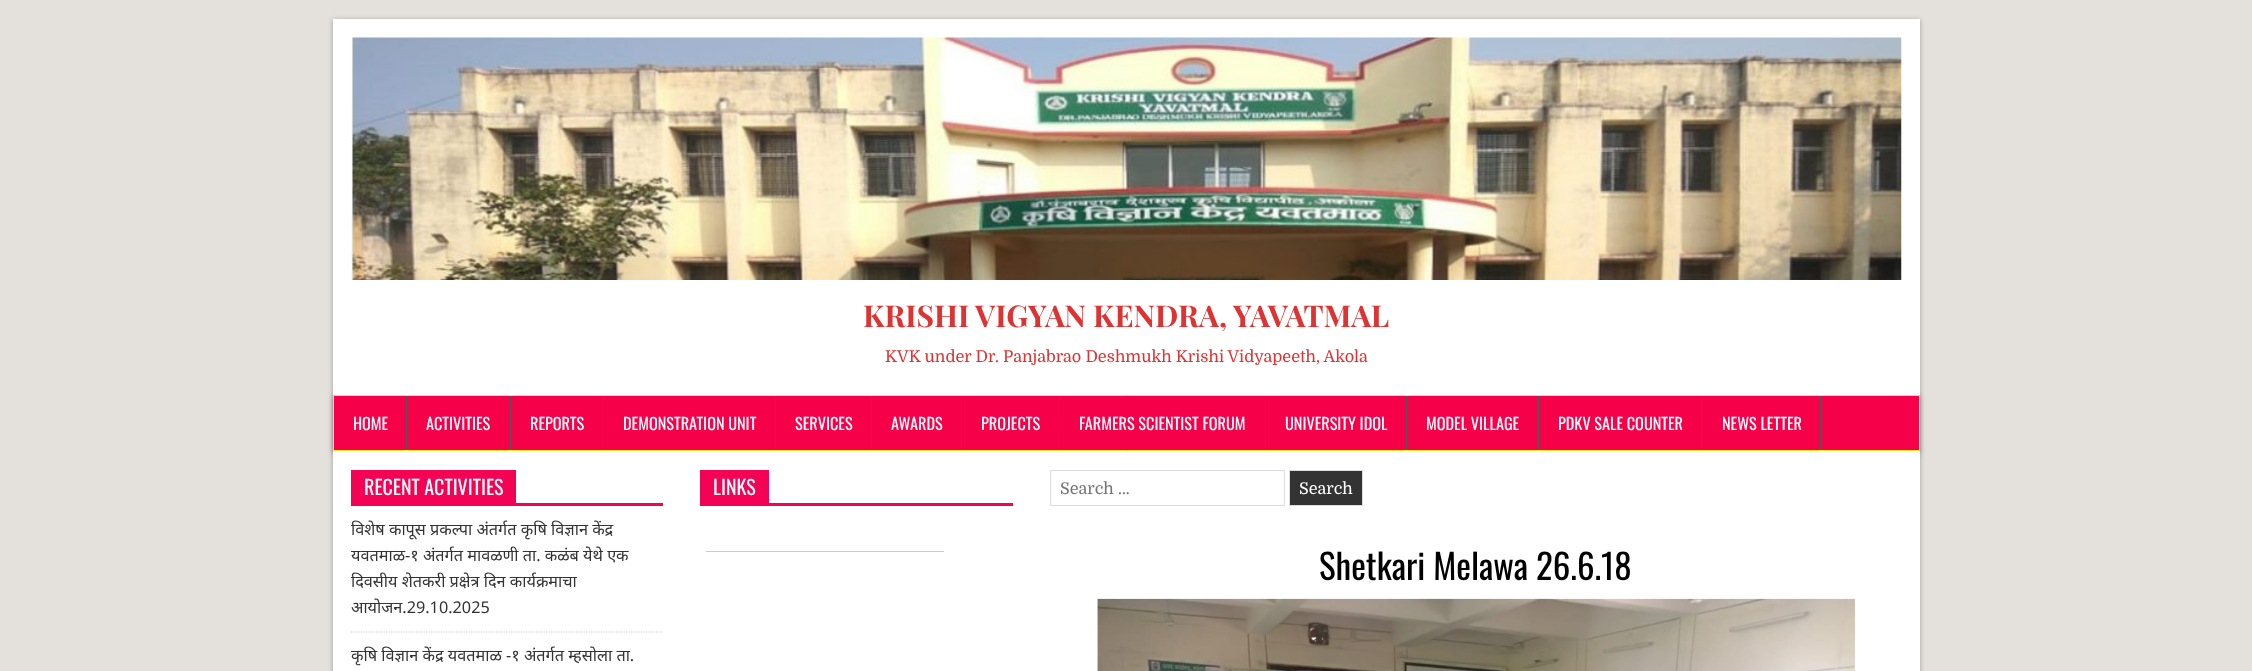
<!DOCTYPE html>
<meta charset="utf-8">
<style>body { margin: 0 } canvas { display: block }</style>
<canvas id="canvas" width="2252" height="671"></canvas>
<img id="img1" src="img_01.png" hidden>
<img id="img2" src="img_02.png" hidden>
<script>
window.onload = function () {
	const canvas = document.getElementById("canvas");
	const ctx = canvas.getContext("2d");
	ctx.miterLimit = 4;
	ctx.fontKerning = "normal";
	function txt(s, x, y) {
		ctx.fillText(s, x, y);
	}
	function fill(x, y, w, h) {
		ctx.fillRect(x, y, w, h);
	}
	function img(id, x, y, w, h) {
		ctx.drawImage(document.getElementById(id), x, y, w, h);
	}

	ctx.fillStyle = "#E4E0DB";
	fill(0, 0, 2252, 671);
	ctx.fillStyle = "rgba(0, 0, 0, 0.3)";
	ctx.filter = "blur(2.5px)";
	ctx.beginPath();
	ctx.rect(333, 20, 1587, 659);
	ctx.fill();
	ctx.filter = "none";
	ctx.filter = "blur(2.5px)";
	ctx.beginPath();
	ctx.rect(333, 396, 1587, 57);
	ctx.fill();
	ctx.filter = "none";
	ctx.fillStyle = "#FFFFFF";
	fill(333, 19, 1587, 376);
	img("img1", 351, 37, 1551, 243);
	ctx.fillStyle = "#F7004A";
	ctx.beginPath();
	ctx.rect(333.5, 395.5, 1586, 55);
	ctx.fill();
	ctx.strokeStyle = "#EEEE22";
	ctx.stroke();
	ctx.fillStyle = "#555555";
	fill(406, 396, 1, 54);
	fill(510, 396, 1, 54);
	fill(603, 396, 1, 54);
	fill(775, 396, 1, 54);
	fill(871, 396, 1, 54);
	fill(961, 396, 1, 54);
	fill(1059, 396, 1, 54);
	fill(1265, 396, 1, 54);
	fill(1406, 396, 1, 54);
	fill(1538, 396, 1, 54);
	fill(1701, 396, 1, 54);
	fill(1820, 396, 1, 54);
	ctx.fillStyle = "#FFFFFF";
	fill(333, 451, 1587, 220);
	ctx.fillStyle = "#F40253";
	fill(351, 503, 312, 3);
	fill(351, 470, 165, 33);
	ctx.beginPath();
	ctx.moveTo(351, 632);
	ctx.lineTo(662.5, 632);
	ctx.strokeStyle = "#CCCCCC";
	ctx.lineWidth = 1.2;
	ctx.setLineDash([1.25, 1.25]);
	ctx.stroke();
	fill(700, 503, 313, 3);
	fill(700, 470, 69, 33);
	ctx.fillStyle = "#CCCCCC";
	fill(706, 551, 238, 1);
	ctx.strokeStyle = "#DDDDDD";
	ctx.lineWidth = 1;
	ctx.setLineDash([]);
	ctx.strokeRect(1050.5, 470.5, 234, 35);
	ctx.fillStyle = "#333333";
	ctx.beginPath();
	ctx.rect(1289.5, 470.5, 73, 35);
	ctx.fill();
	ctx.stroke();
	img("img2", 1097, 598, 758, 73);
	ctx.font = "bold 30px Playfair Display";
	ctx.fillStyle = "#DD3333";
	txt("KRISHI VIGYAN KENDRA, YAVATMAL", 863, 327);
	ctx.font = "16.25px Domine";
	txt("KVK under Dr. Panjabrao Deshmukh Krishi Vidyapeeth, Akola", 885, 362);
	ctx.font = "16.25px Oswald";
	ctx.fillStyle = "#FFFFFF";
	txt("HOME", 353, 430);
	txt("ACTIVITIES", 426, 430);
	txt("REPORTS", 530, 430);
	txt("DEMONSTRATION UNIT", 623, 430);
	txt("SERVICES", 795, 430);
	txt("AWARDS", 891, 430);
	txt("PROJECTS", 981, 430);
	txt("FARMERS SCIENTIST FORUM", 1079, 430);
	txt("UNIVERSITY IDOL", 1285, 430);
	txt("MODEL VILLAGE", 1426, 430);
	txt("PDKV SALE COUNTER", 1558, 430);
	txt("NEWS LETTER", 1722, 430);
	ctx.font = "20px Oswald";
	txt("RECENT ACTIVITIES", 364, 495);
	ctx.font = "16.25px Noto Sans";
	ctx.fillStyle = "#333333";
	txt("विशेष कापूस प्रकल्पा अंतर्गत कृषि विज्ञान केंद्र", 351, 535);
	txt("यवतमाळ-१ अंतर्गत मावळणी ता. कळंब येथे एक", 351, 561);
	txt("दिवसीय शेतकरी प्रक्षेत्र दिन कार्यक्रमाचा", 351, 587);
	txt("आयोजन.29.10.2025", 351, 613);
	ctx.save();
	ctx.beginPath();
	ctx.rect(351, 470, 312, 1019);
	ctx.clip();
	txt("कृषि विज्ञान केंद्र यवतमाळ -१ अंतर्गत म्हसोला ता.", 351, 661);
	ctx.restore();
	ctx.font = "20px Oswald";
	ctx.fillStyle = "#FFFFFF";
	txt("LINKS", 713, 495);
	ctx.font = "16.25px Domine";
	ctx.fillStyle = "#757575";
	txt("Search …", 1060, 494);
	ctx.fillStyle = "#FFFFFF";
	txt("Search", 1299, 494);
	ctx.font = "35px Oswald";
	ctx.fillStyle = "#000000";
	txt("Shetkari Melawa 26.6.18", 1319, 580);
};
</script>
